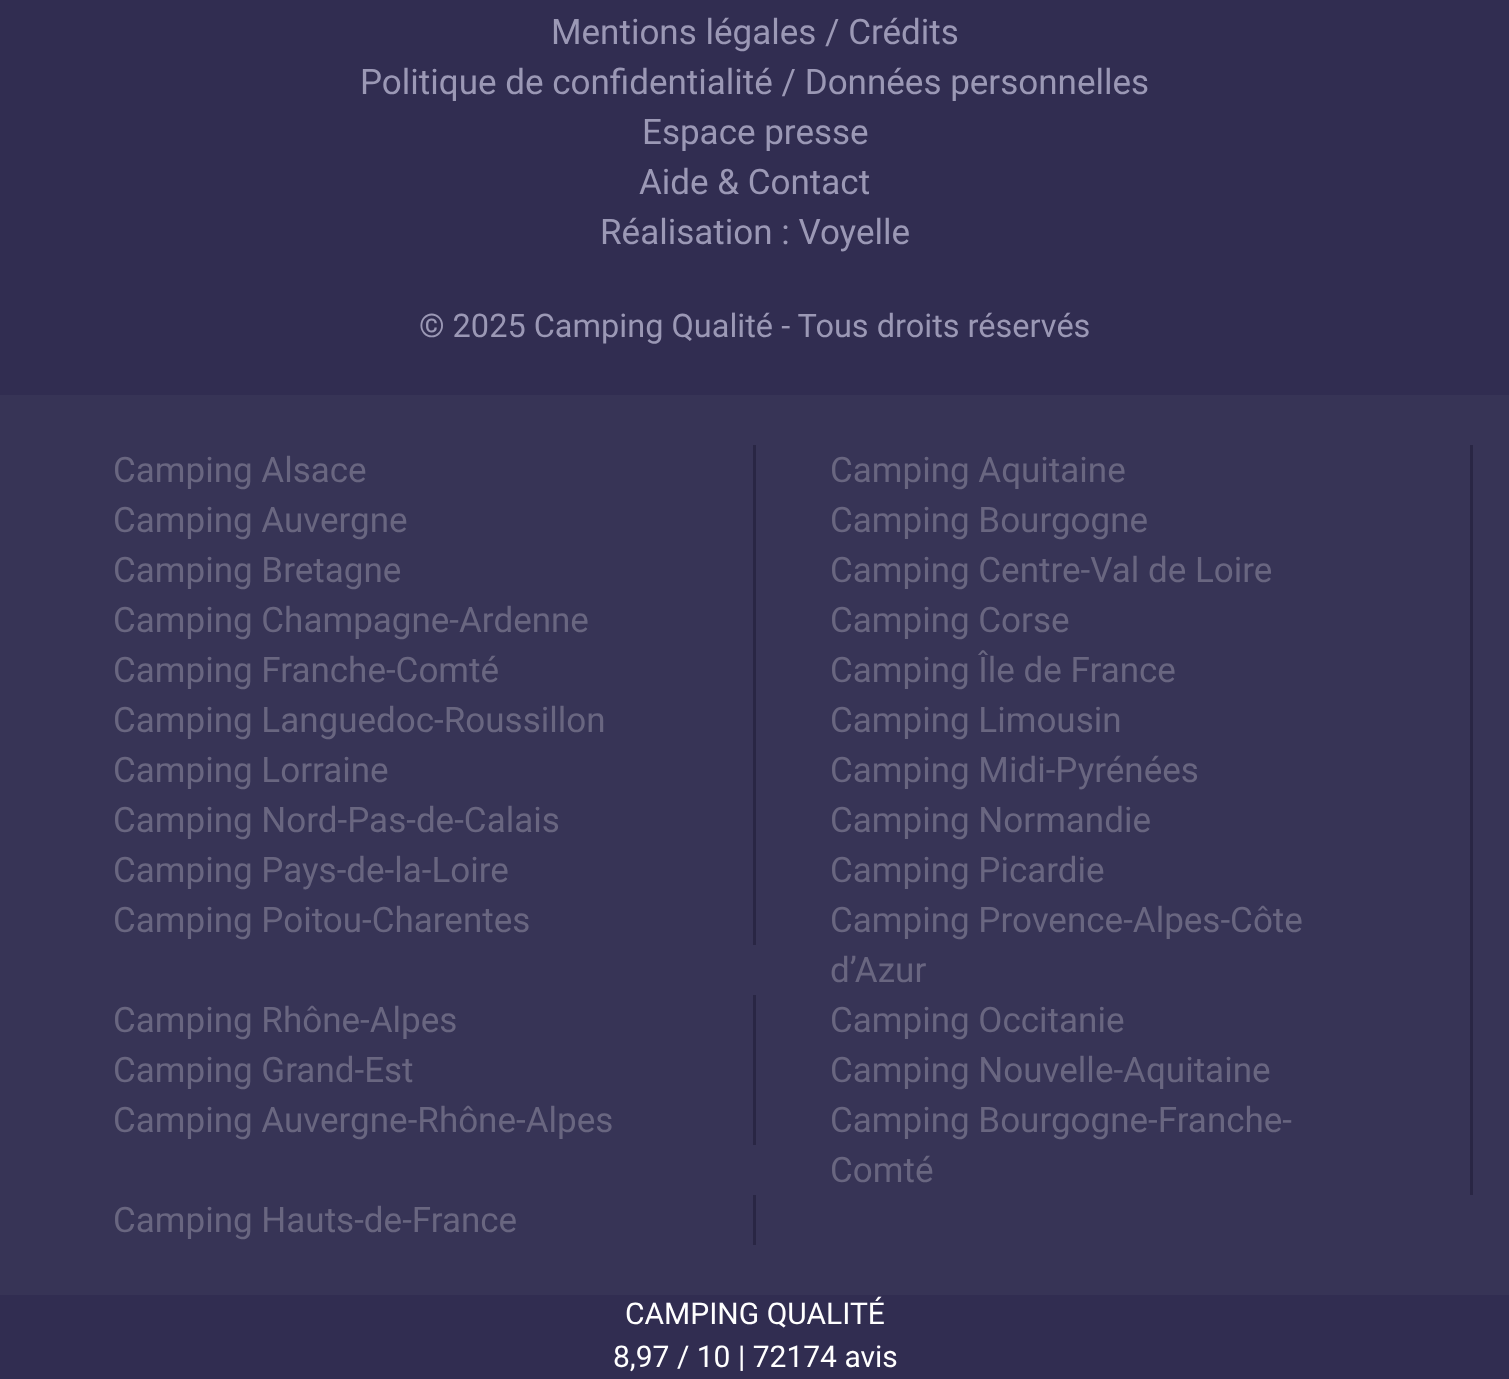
<!DOCTYPE html>
<meta charset="utf-8">
<style>body { margin: 0 } canvas { display: block }</style>
<canvas id="canvas" width="1509" height="1379"></canvas>
<script>
window.onload = function () {
	const canvas = document.getElementById("canvas");
	const ctx = canvas.getContext("2d");
	ctx.miterLimit = 4;
	ctx.fontKerning = "normal";
	function txt(s, x, y) {
		ctx.fillText(s, x, y);
	}
	function fill(x, y, w, h) {
		ctx.fillRect(x, y, w, h);
	}

	ctx.fillStyle = "#312D51";
	fill(0, 0, 1509, 1379);
	ctx.fillStyle = "#373456";
	fill(0, 395, 1509, 900);
	ctx.fillStyle = "#292644";
	fill(753, 445, 3, 500);
	fill(1470, 445, 3, 750);
	fill(753, 995, 3, 150);
	fill(753, 1195, 3, 50);
	ctx.font = "35px Roboto";
	ctx.fillStyle = "#9B98B5";
	txt("Mentions légales / Crédits", 551, 44);
	txt("Politique de confidentialité / Données personnelles", 360, 94);
	txt("Espace presse", 642, 144);
	txt("Aide & Contact", 639, 194);
	txt("Réalisation : Voyelle", 600, 244);
	ctx.font = "32.5px Roboto";
	txt("© 2025 Camping Qualité - Tous droits réservés", 419, 337);
	ctx.font = "35px Roboto";
	ctx.fillStyle = "#696680";
	txt("Camping Alsace", 113, 482);
	txt("Camping Aquitaine", 830, 482);
	txt("Camping Auvergne", 113, 532);
	txt("Camping Bourgogne", 830, 532);
	txt("Camping Bretagne", 113, 582);
	txt("Camping Centre-Val de Loire", 830, 582);
	txt("Camping Champagne-Ardenne", 113, 632);
	txt("Camping Corse", 830, 632);
	txt("Camping Franche-Comté", 113, 682);
	txt("Camping Île de France", 830, 682);
	txt("Camping Languedoc-Roussillon", 113, 732);
	txt("Camping Limousin", 830, 732);
	txt("Camping Lorraine", 113, 782);
	txt("Camping Midi-Pyrénées", 830, 782);
	txt("Camping Nord-Pas-de-Calais", 113, 832);
	txt("Camping Normandie", 830, 832);
	txt("Camping Pays-de-la-Loire", 113, 882);
	txt("Camping Picardie", 830, 882);
	txt("Camping Poitou-Charentes", 113, 932);
	txt("Camping Provence-Alpes-Côte", 830, 932);
	txt("d’Azur", 830, 982);
	txt("Camping Rhône-Alpes", 113, 1032);
	txt("Camping Occitanie", 830, 1032);
	txt("Camping Grand-Est", 113, 1082);
	txt("Camping Nouvelle-Aquitaine", 830, 1082);
	txt("Camping Auvergne-Rhône-Alpes", 113, 1132);
	txt("Camping Bourgogne-Franche-", 830, 1132);
	txt("Comté", 830, 1182);
	txt("Camping Hauts-de-France", 113, 1232);
	ctx.font = "30px Roboto";
	ctx.fillStyle = "#FFFFFF";
	txt("CAMPING QUALITÉ", 625, 1324);
	txt("8,97 / 10 | 72174 avis", 613, 1367);
};
</script>
